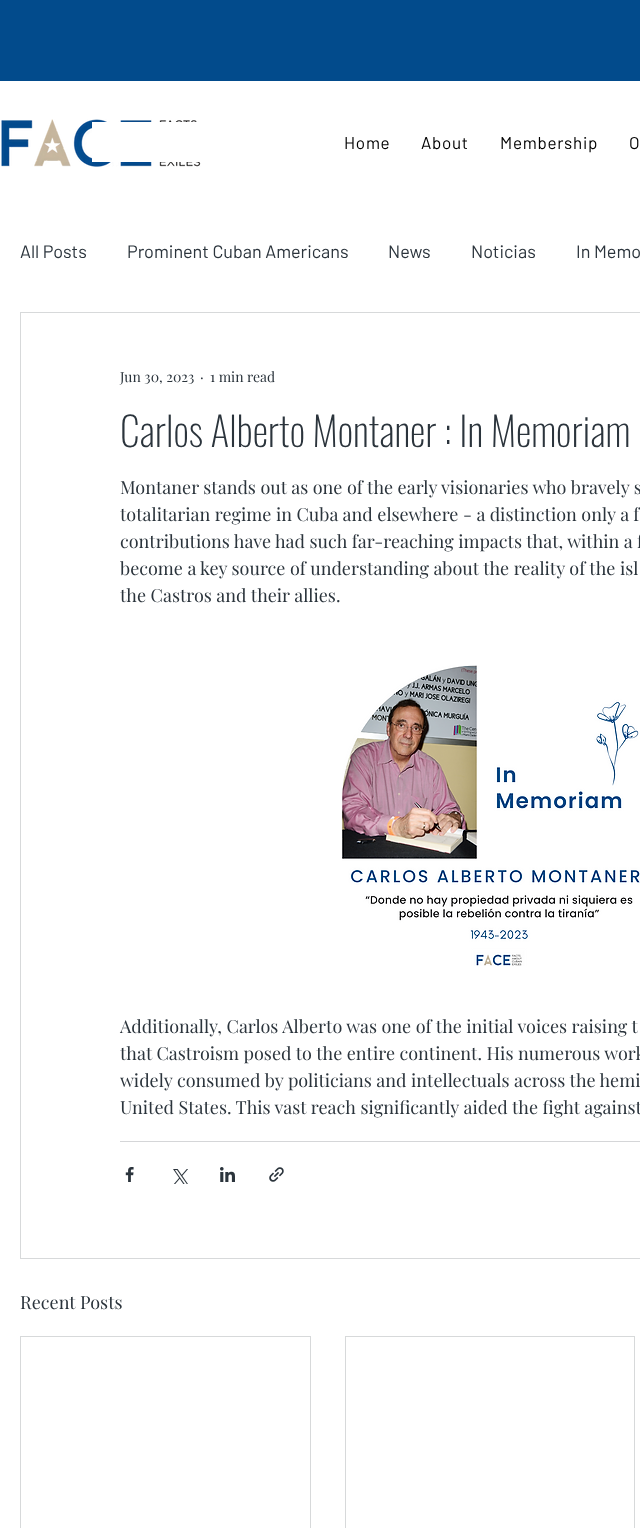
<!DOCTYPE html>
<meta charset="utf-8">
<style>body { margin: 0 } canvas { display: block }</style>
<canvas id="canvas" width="640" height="1528"></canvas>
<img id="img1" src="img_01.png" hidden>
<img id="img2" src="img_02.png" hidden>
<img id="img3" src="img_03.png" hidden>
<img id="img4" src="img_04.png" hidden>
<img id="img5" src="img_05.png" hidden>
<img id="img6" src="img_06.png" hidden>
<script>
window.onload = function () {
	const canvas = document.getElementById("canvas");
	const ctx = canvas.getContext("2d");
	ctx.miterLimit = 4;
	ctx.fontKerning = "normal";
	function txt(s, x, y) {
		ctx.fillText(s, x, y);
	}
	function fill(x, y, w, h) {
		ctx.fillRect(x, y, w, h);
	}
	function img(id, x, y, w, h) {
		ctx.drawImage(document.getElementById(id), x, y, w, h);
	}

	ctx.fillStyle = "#FFFFFF";
	fill(0, 0, 640, 1528);
	ctx.fillStyle = "#024B8C";
	fill(0, 0, 640, 81);
	img("img1", 1, 119, 200, 48);
	ctx.fillStyle = "#FFFFFF";
	fill(92, 122, 109, 40);
	ctx.strokeStyle = "#D7D9DA";
	ctx.strokeRect(20.5, 312.5, 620, 946);
	img("img2", 342, 665, 298, 301);
	ctx.fillStyle = "#D5D6D8";
	fill(120, 1141, 520, 1);
	img("img3", 125, 1167, 9, 15);
	img("img4", 173, 1169, 15, 15);
	img("img5", 220, 1167, 15, 15);
	img("img6", 269, 1167, 15, 15);
	ctx.strokeRect(20.5, 1336.5, 290, 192);
	ctx.strokeRect(345.5, 1336.5, 289, 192);
	ctx.letterSpacing = "0.75px";
	ctx.font = "17px Barlow";
	ctx.fillStyle = "#000000";
	txt("Home", 344, 149);
	txt("About", 421, 149);
	txt("Membership", 500, 149);
	txt("O", 629, 149);
	ctx.letterSpacing = "0px";
	ctx.font = "18px Barlow";
	ctx.fillStyle = "#2B343C";
	txt("All Posts", 20, 258);
	txt("Prominent Cuban Americans", 127, 258);
	txt("News", 388, 258);
	txt("Noticias", 471, 258);
	txt("In Memo", 576, 258);
	ctx.font = "14px Playfair Display";
	txt("Jun 30, 2023", 120, 382);
	txt("·", 200, 382);
	txt("1 min read", 210, 382);
	ctx.font = "200 40px Oswald";
	txt("Carlos Alberto Montaner : In Memoriam", 120, 447);
	ctx.font = "18px Playfair Display";
	txt("Montaner stands out as one of the early visionaries who bravely s", 120, 494);
	txt("totalitarian regime in Cuba and elsewhere - a distinction only a f", 120, 521);
	txt("contributions have had such far-reaching impacts that, within a f", 120, 548);
	txt("become a key source of understanding about the reality of the isl", 120, 575);
	txt("the Castros and their allies.", 120, 602);
	txt("Additionally, Carlos Alberto was one of the initial voices raising t", 120, 1033);
	txt("that Castroism posed to the entire continent. His numerous work", 120, 1060);
	txt("widely consumed by politicians and intellectuals across the hemi", 120, 1087);
	txt("United States. This vast reach significantly aided the fight against", 120, 1114);
	txt("Recent Posts", 20, 1309);
};
</script>
